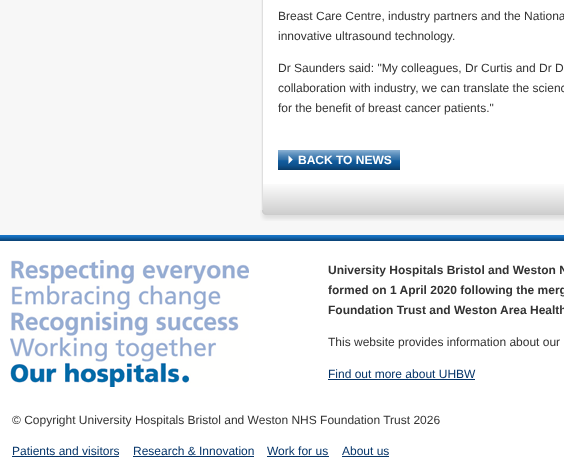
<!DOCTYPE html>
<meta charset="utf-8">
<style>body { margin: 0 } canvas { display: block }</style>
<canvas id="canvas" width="564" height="472"></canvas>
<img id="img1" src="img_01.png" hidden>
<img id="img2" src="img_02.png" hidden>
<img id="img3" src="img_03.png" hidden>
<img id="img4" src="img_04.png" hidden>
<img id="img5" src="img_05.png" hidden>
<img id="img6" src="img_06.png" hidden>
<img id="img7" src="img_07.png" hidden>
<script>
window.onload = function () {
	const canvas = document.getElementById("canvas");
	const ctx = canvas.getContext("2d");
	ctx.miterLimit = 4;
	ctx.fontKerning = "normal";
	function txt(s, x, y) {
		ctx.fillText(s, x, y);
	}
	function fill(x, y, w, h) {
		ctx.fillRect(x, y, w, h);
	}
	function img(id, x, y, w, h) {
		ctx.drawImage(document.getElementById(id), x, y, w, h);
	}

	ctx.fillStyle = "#F7F7F7";
	fill(0, 0, 564, 472);
	img("img1", 261, 0, 303, 210);
	img("img2", 263, 184, 301, 26);
	img("img3", 278, 150, 122, 20);
	img("img4", 288, 155, 5, 9);
	img("img5", 260, 210, 304, 11);
	ctx.fillStyle = "#FFFFFF";
	fill(0, 241, 564, 231);
	img("img6", 0, 235, 564, 6);
	img("img7", 10, 260, 239, 127);
	ctx.fillStyle = "#063569";
	fill(328, 379, 147, 1);
	fill(12, 456, 107, 1);
	fill(133, 456, 121, 1);
	fill(267, 456, 62, 1);
	fill(342, 456, 47, 1);
	ctx.font = "12px Liberation Sans";
	ctx.fillStyle = "#333333";
	txt("Breast Care Centre, industry partners and the Nationa", 278, 20);
	txt("innovative ultrasound technology.", 278, 40);
	txt("Dr Saunders said: \"My colleagues, Dr Curtis and Dr D", 278, 72);
	txt("collaboration with industry, we can translate the scienc", 278, 92);
	txt("for the benefit of breast cancer patients.\"", 278, 112);
	ctx.font = "bold 12px Liberation Sans";
	ctx.fillStyle = "#FFFFFF";
	txt("BACK TO NEWS", 298, 164);
	ctx.fillStyle = "#333333";
	txt("University Hospitals Bristol and Weston N", 328, 274);
	txt("formed on 1 April 2020 following the merg", 328, 294);
	txt("Foundation Trust and Weston Area Health", 328, 314);
	ctx.font = "12px Liberation Sans";
	txt("This website provides information about our", 328, 346);
	ctx.fillStyle = "#063569";
	txt("Find out more about UHBW", 328, 378);
	ctx.fillStyle = "#333333";
	txt("© Copyright University Hospitals Bristol and Weston NHS Foundation Trust 2026", 12, 424);
	ctx.fillStyle = "#063569";
	txt("Patients and visitors", 12, 455);
	txt("Research & Innovation", 133, 455);
	txt("Work for us", 267, 455);
	txt("About us", 342, 455);
};
</script>
